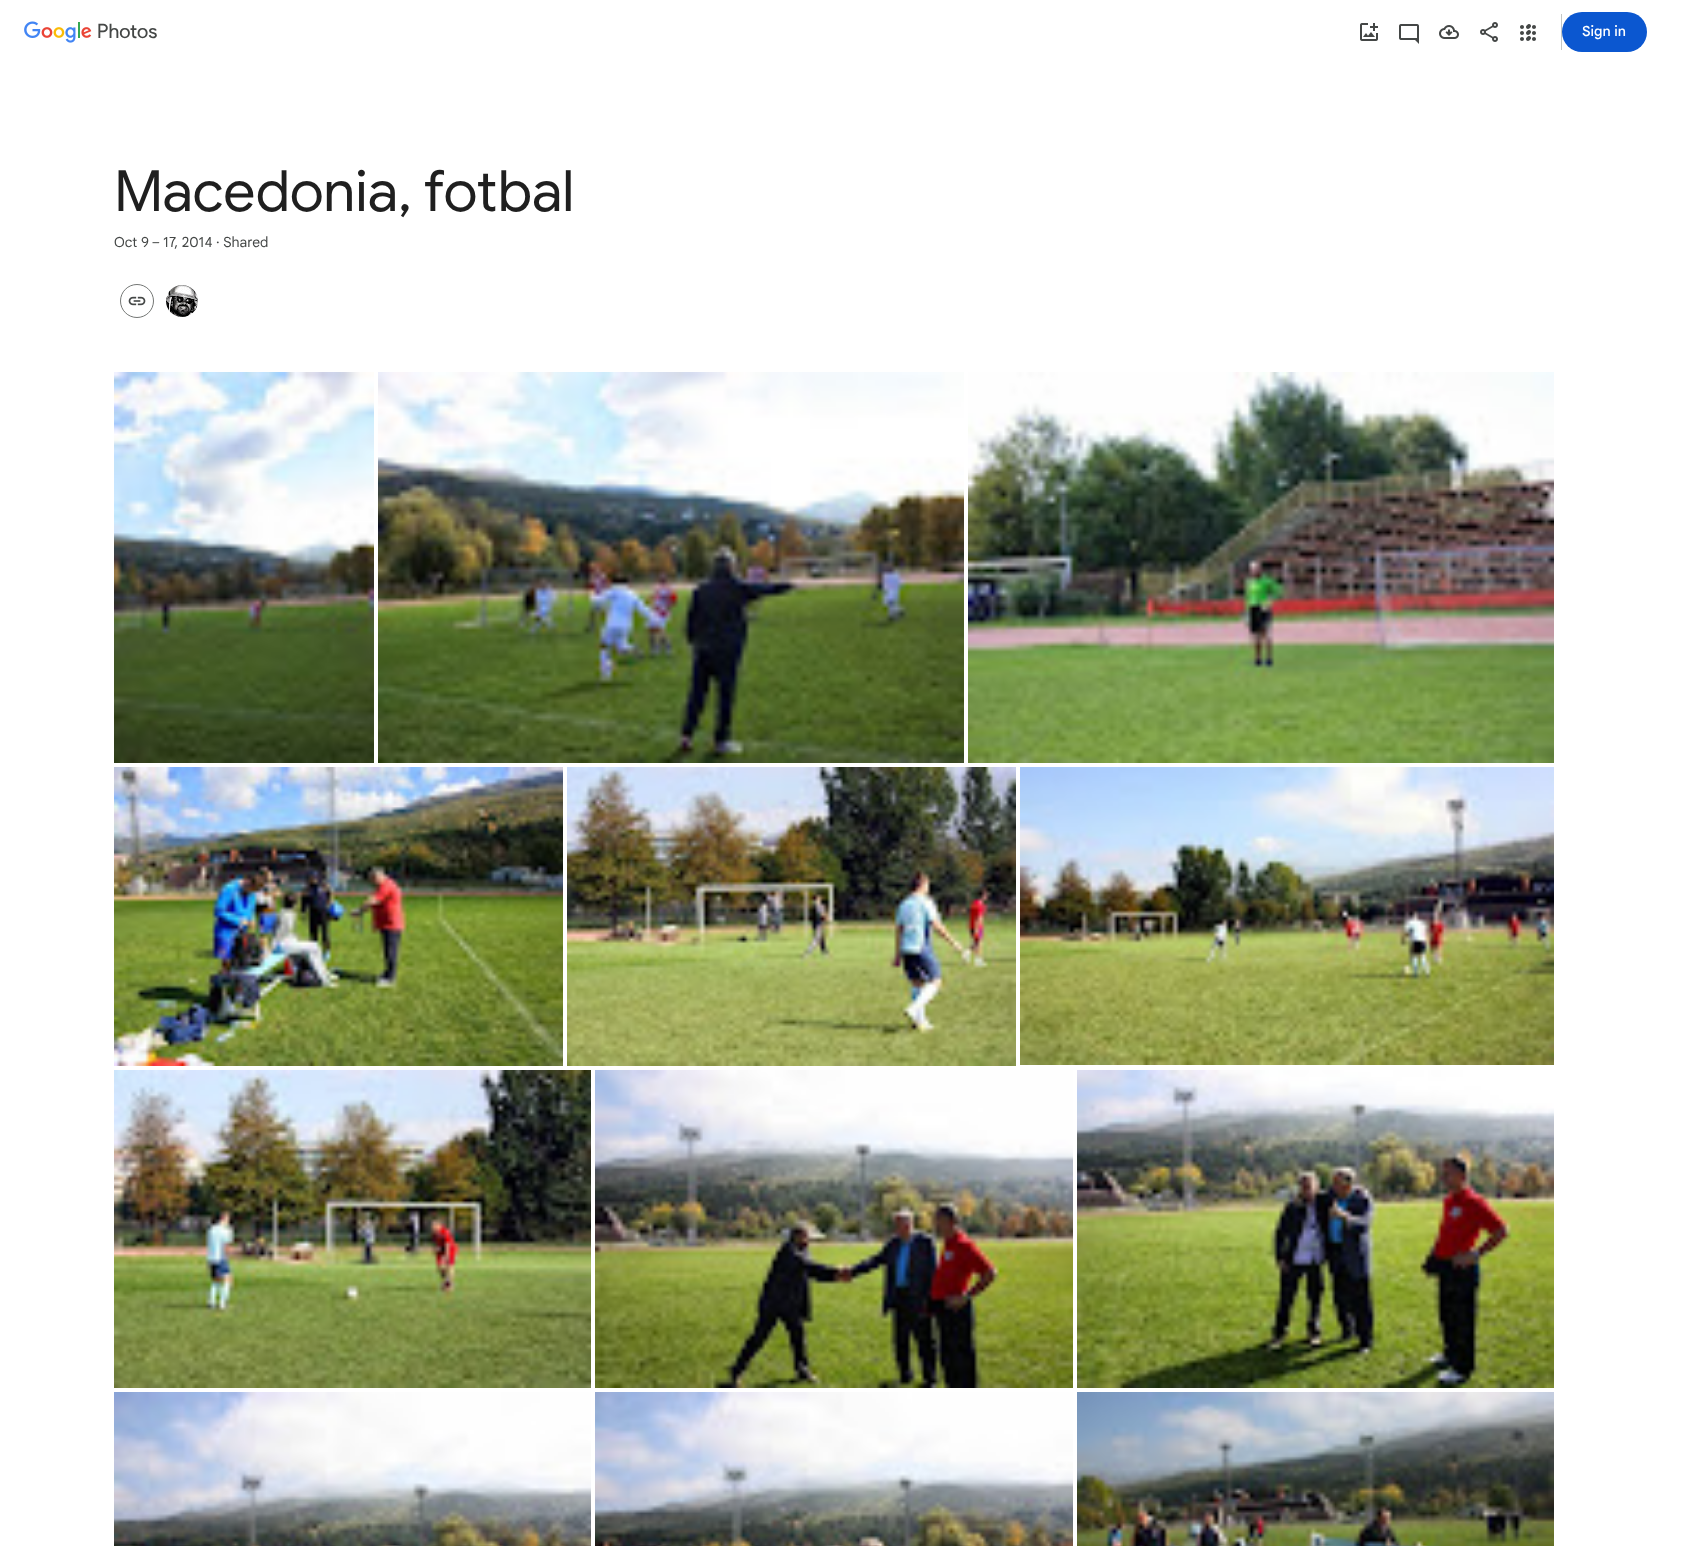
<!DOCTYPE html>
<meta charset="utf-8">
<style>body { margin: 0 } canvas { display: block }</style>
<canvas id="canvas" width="1683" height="1546"></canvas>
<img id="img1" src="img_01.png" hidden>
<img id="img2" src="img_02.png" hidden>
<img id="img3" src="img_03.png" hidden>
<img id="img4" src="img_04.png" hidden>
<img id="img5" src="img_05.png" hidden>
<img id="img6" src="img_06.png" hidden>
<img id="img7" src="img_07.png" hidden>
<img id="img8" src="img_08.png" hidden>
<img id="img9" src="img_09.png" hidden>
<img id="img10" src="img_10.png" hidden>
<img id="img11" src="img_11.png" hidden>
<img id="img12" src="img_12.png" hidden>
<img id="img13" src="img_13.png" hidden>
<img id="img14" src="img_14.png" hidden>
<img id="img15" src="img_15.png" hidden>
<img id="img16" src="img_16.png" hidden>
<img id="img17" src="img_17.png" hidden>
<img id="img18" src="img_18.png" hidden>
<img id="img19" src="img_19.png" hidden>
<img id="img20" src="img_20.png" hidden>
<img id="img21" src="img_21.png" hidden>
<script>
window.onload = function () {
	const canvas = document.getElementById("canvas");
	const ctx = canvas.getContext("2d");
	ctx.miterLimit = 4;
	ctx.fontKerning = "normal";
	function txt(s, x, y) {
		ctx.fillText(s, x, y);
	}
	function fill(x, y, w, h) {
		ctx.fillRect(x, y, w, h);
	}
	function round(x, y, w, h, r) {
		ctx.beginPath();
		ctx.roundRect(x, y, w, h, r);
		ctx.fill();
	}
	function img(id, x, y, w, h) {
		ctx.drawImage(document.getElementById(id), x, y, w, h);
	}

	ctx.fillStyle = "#FFFFFF";
	fill(0, 0, 1683, 1546);
	img("img1", 24, 21, 68, 22);
	img("img2", 1360, 23, 18, 18);
	img("img3", 1399, 24, 20, 20);
	img("img4", 1439, 25, 20, 14);
	img("img5", 1480, 22, 18, 20);
	img("img6", 1527, 24, 4, 16);
	ctx.fillStyle = "#C4C7C5";
	fill(1561, 14, 1, 36);
	ctx.beginPath();
	ctx.arc(137, 301, 16.5, 0, Math.PI * 2);
	ctx.strokeStyle = "#747775";
	ctx.stroke();
	img("img7", 128, 296, 18, 10);
	img("img8", 166, 285, 32, 32);
	img("img9", 114, 372, 260, 391);
	img("img10", 378, 372, 586, 391);
	img("img11", 968, 372, 586, 391);
	img("img12", 114, 767, 449, 299);
	img("img13", 567, 767, 449, 299);
	img("img14", 1020, 767, 534, 298);
	img("img15", 114, 1070, 477, 318);
	img("img16", 595, 1070, 478, 318);
	img("img17", 1077, 1070, 477, 318);
	img("img18", 114, 1392, 477, 154);
	img("img19", 595, 1392, 478, 154);
	img("img20", 1077, 1392, 477, 154);
	img("img21", 1520, 25, 16, 16);
	ctx.fillStyle = "#0B57D0";
	round(1562, 12, 85, 40, 20);
	ctx.font = "20px Product Sans";
	ctx.fillStyle = "#444746";
	txt("Photos", 97, 38);
	ctx.font = "57px Google Sans";
	ctx.fillStyle = "#1F1F1F";
	txt("Macedonia, fotbal", 114, 211);
	ctx.font = "14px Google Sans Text";
	ctx.fillStyle = "#444746";
	txt("Oct 9 – 17, 2014 · Shared", 114, 247);
	ctx.font = "500 14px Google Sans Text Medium";
	ctx.fillStyle = "#FFFFFF";
	txt("Sign in", 1582, 36);
};
</script>
